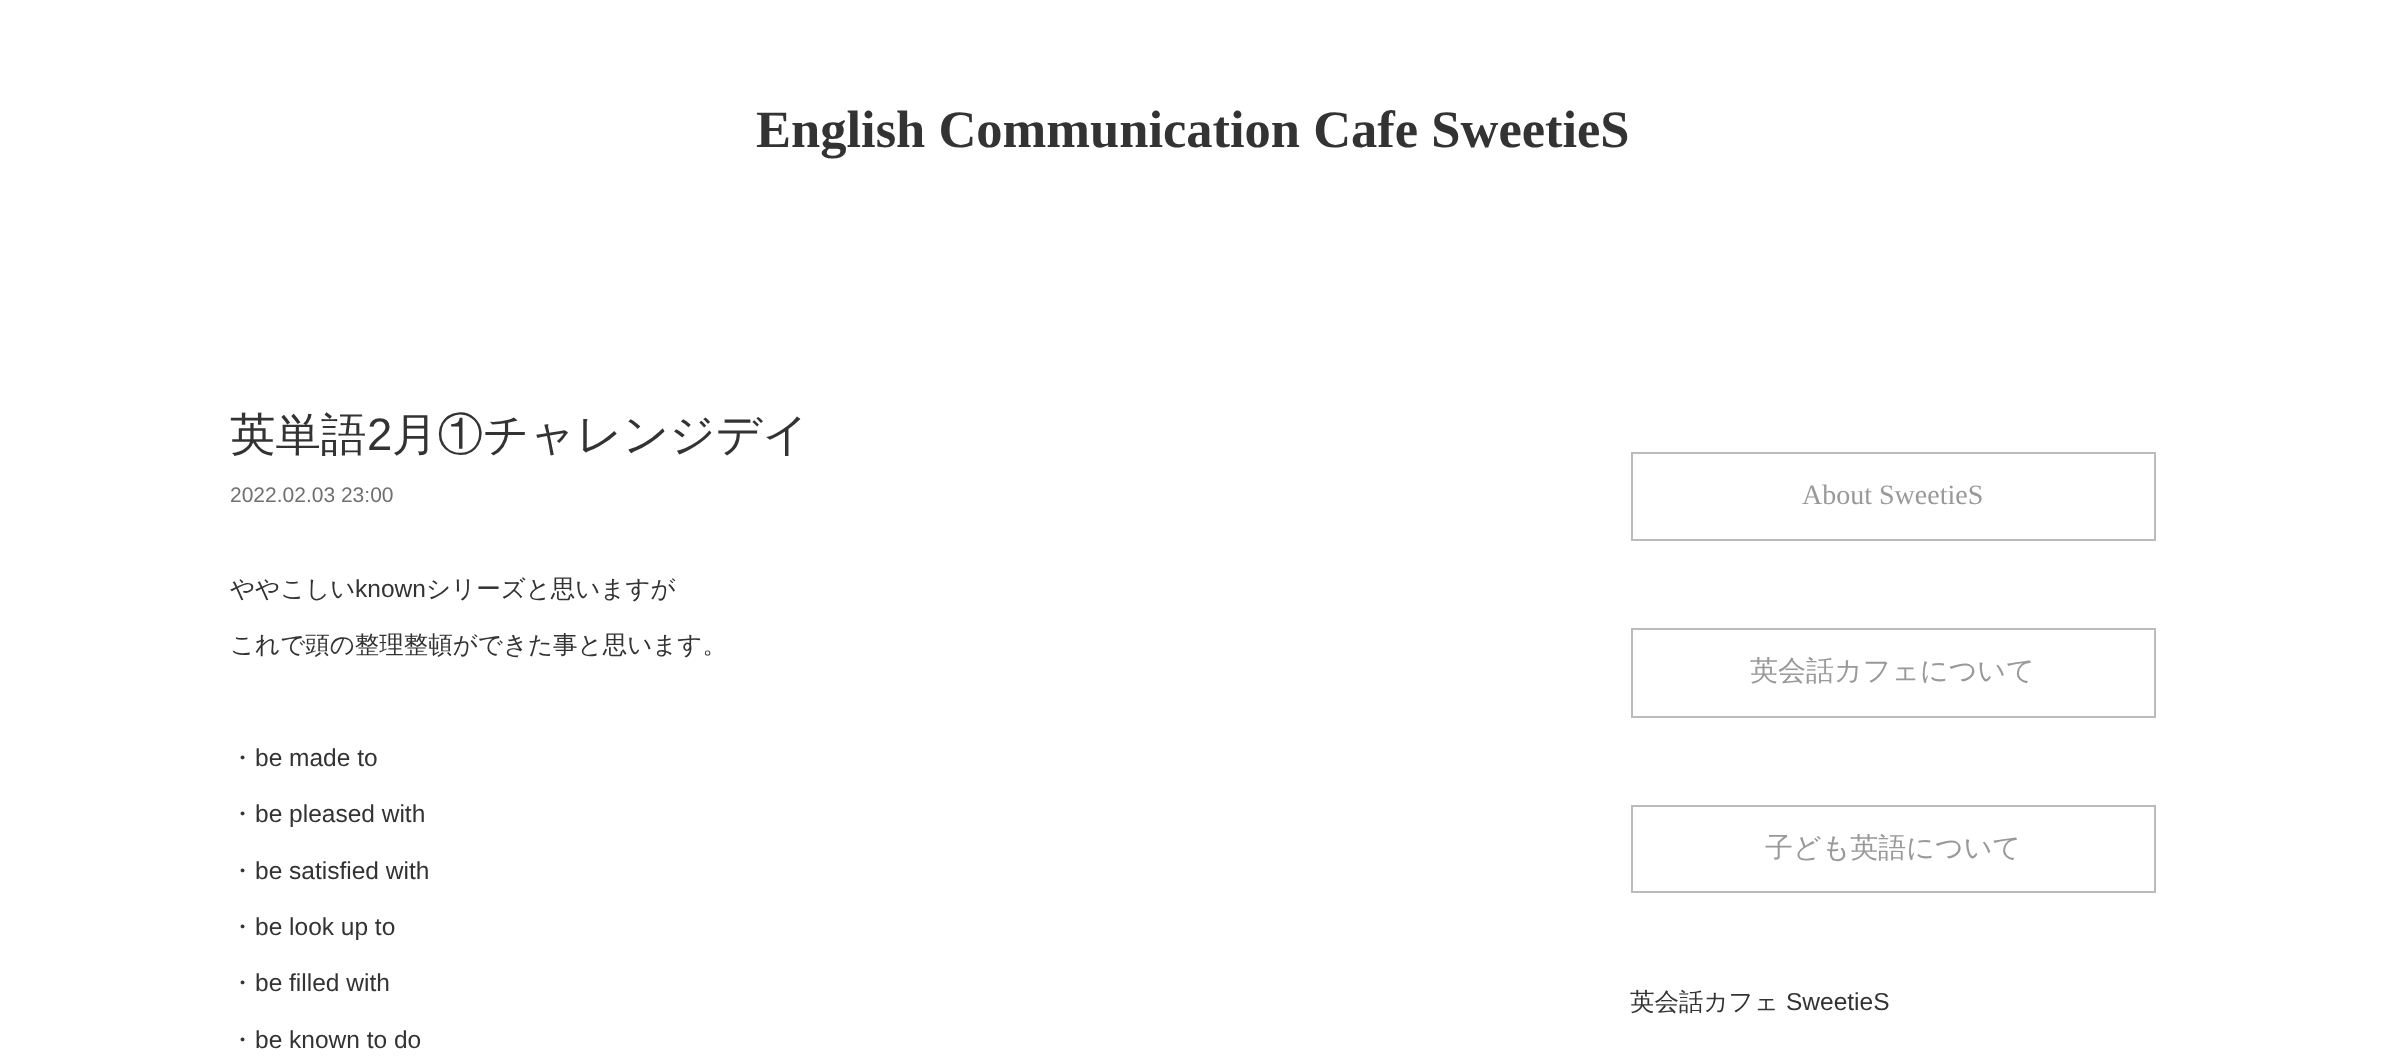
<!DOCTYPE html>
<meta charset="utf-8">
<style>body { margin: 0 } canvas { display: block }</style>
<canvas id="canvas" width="2384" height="1058"></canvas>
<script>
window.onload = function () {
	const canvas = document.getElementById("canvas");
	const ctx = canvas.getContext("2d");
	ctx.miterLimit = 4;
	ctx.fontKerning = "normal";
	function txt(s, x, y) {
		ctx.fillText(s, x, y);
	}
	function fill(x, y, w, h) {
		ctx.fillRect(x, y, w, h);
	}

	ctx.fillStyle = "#FFFFFF";
	fill(0, 0, 2384, 1058);
	ctx.strokeStyle = "#BBBBBB";
	ctx.lineWidth = 2;
	ctx.strokeRect(1632, 453, 523, 87);
	ctx.strokeRect(1632, 629, 523, 88);
	ctx.strokeRect(1632, 806, 523, 86);
	ctx.font = "bold 52.5px Liberation Serif";
	ctx.fillStyle = "#333333";
	txt("English Communication Cafe SweetieS", 756, 147);
	ctx.font = "500 45.5px WenQuanYi Zen Hei";
	txt("英単語", 230, 450);
	ctx.font = "45.5px Liberation Sans";
	txt("2", 367, 450);
	ctx.font = "500 45.5px WenQuanYi Zen Hei";
	txt("月①チャレンジデイ", 392, 450);
	ctx.font = "21px Liberation Sans";
	ctx.fillStyle = "#707070";
	txt("2022.02.03 23:00", 230, 502);
	ctx.font = "500 24.5px WenQuanYi Zen Hei";
	ctx.fillStyle = "#333333";
	txt("ややこしい", 230, 597);
	ctx.font = "24.5px Liberation Sans";
	txt("known", 355, 597);
	ctx.font = "500 24.5px WenQuanYi Zen Hei";
	txt("シリーズと思いますが", 426, 597);
	txt("これで頭の整理整頓ができた事と思います。", 230, 653);
	txt("・", 230, 766);
	ctx.font = "24.5px Liberation Sans";
	txt("be made to", 255, 766);
	ctx.font = "500 24.5px WenQuanYi Zen Hei";
	txt("・", 230, 822);
	ctx.font = "24.5px Liberation Sans";
	txt("be pleased with", 255, 822);
	ctx.font = "500 24.5px WenQuanYi Zen Hei";
	txt("・", 230, 879);
	ctx.font = "24.5px Liberation Sans";
	txt("be satisfied with", 255, 879);
	ctx.font = "500 24.5px WenQuanYi Zen Hei";
	txt("・", 230, 935);
	ctx.font = "24.5px Liberation Sans";
	txt("be look up to", 255, 935);
	ctx.font = "500 24.5px WenQuanYi Zen Hei";
	txt("・", 230, 991);
	ctx.font = "24.5px Liberation Sans";
	txt("be filled with", 255, 991);
	ctx.font = "500 24.5px WenQuanYi Zen Hei";
	txt("・", 230, 1048);
	ctx.font = "24.5px Liberation Sans";
	txt("be known to do", 255, 1048);
	ctx.font = "28px Liberation Serif";
	ctx.fillStyle = "#999999";
	txt("About SweetieS", 1802, 504);
	ctx.font = "500 28px WenQuanYi Zen Hei";
	txt("英会話カフェについて", 1750, 680);
	txt("子ども英語について", 1765, 857);
	ctx.font = "500 24.5px WenQuanYi Zen Hei";
	ctx.fillStyle = "#333333";
	txt("英会話カフェ", 1630, 1010);
	ctx.font = "24.5px Liberation Sans";
	txt("SweetieS", 1786, 1010);
};
</script>
